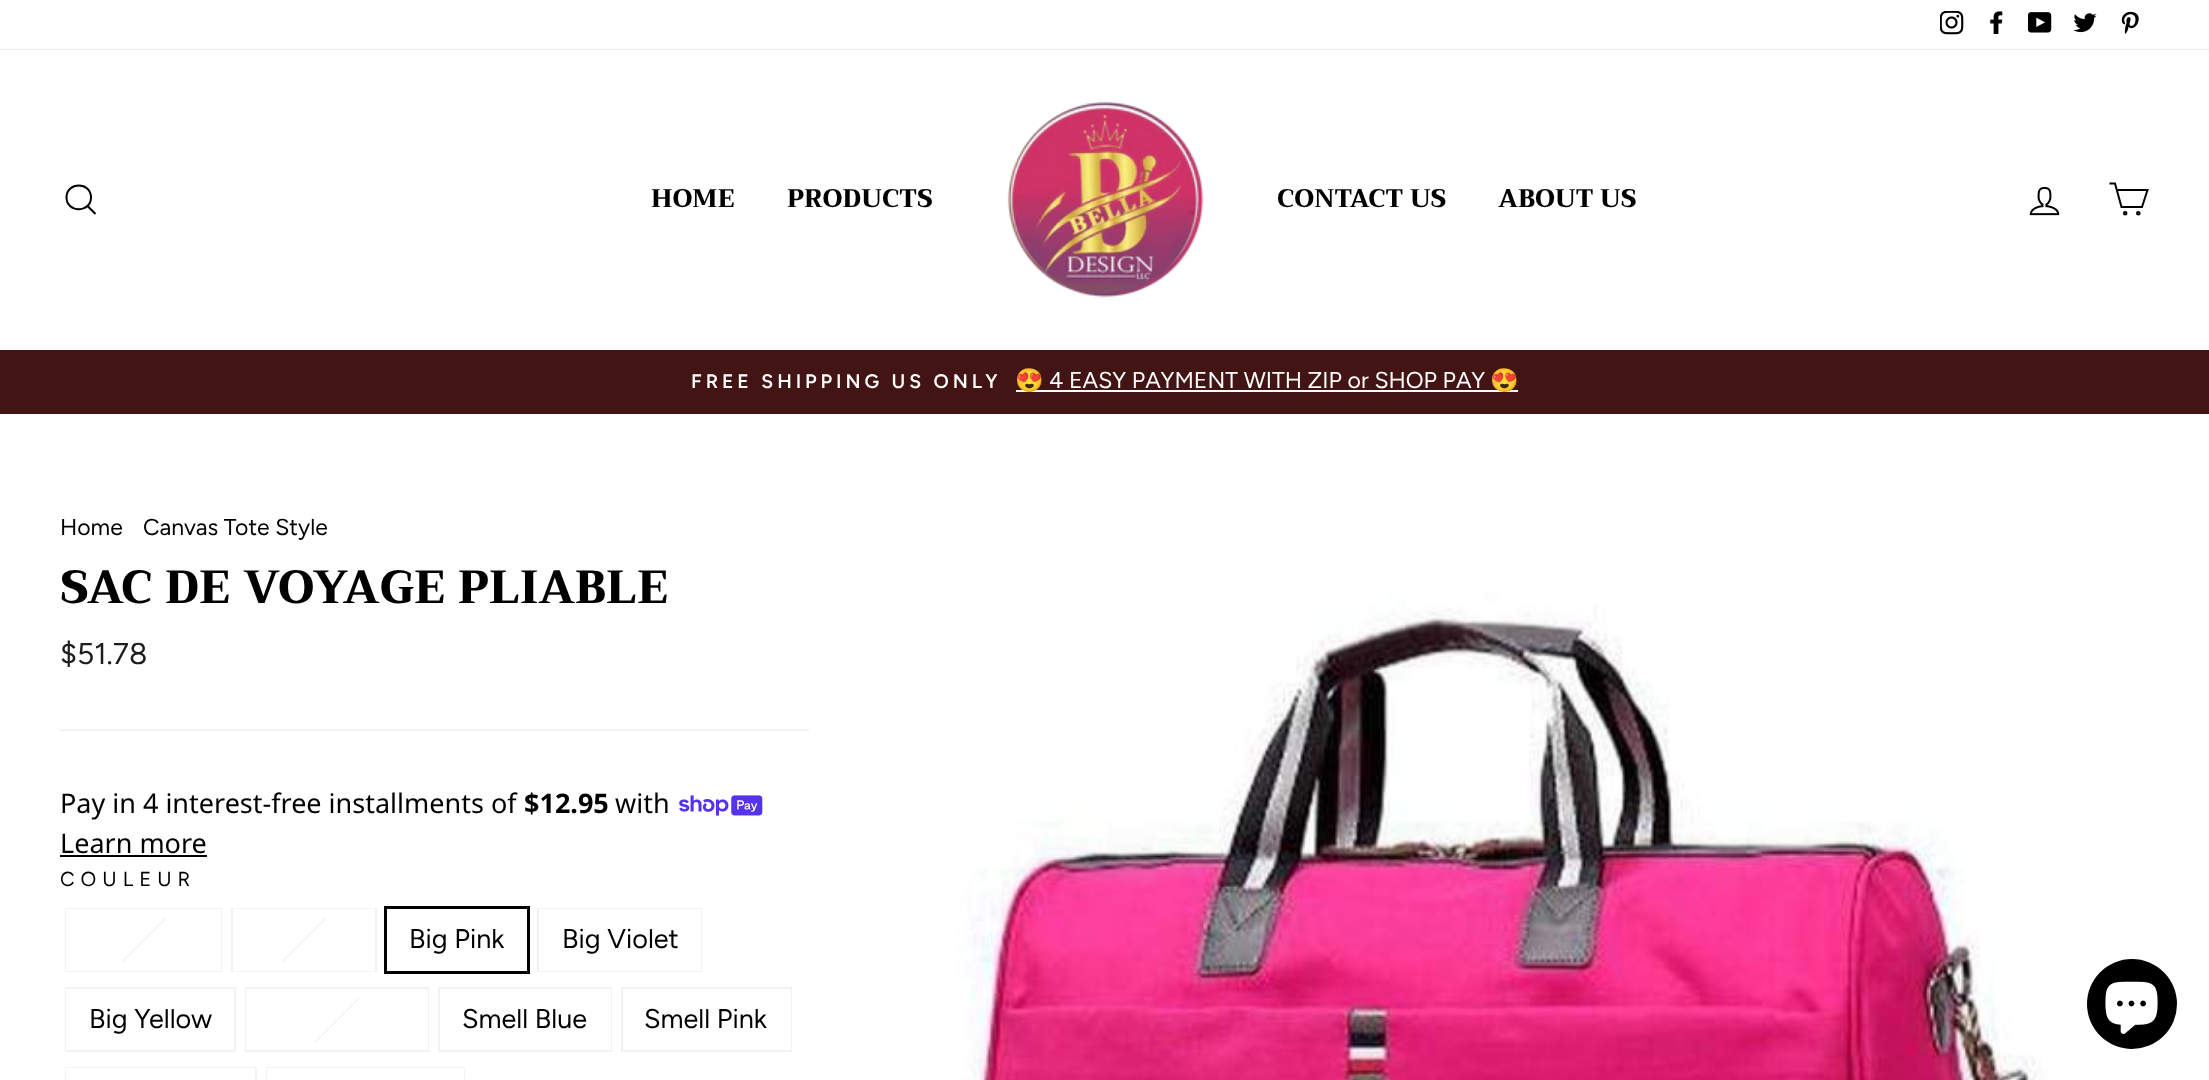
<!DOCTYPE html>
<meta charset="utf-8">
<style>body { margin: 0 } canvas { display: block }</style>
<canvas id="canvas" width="2209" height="1080"></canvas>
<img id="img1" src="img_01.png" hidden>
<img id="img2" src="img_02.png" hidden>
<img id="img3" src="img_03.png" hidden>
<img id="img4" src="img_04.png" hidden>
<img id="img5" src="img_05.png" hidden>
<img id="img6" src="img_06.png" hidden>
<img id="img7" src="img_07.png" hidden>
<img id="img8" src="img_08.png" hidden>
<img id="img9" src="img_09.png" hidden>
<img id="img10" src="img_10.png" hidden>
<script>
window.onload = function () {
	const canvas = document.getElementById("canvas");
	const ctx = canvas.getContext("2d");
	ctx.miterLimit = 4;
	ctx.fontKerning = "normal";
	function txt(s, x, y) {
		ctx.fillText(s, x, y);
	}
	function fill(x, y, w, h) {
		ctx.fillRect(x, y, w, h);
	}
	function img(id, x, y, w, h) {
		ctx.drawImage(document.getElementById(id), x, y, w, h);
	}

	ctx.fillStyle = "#FFFFFF";
	fill(0, 0, 2209, 1080);
	img("img1", 1940, 11, 24, 24);
	img("img2", 1990, 11, 13, 23);
	img("img3", 2028, 12, 24, 21);
	img("img4", 2073, 13, 24, 20);
	img("img5", 2121, 11, 18, 23);
	ctx.fillStyle = "rgba(0, 0, 0, 0.2)";
	ctx.filter = "blur(1px)";
	ctx.beginPath();
	ctx.rect(0, 50, 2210, 300);
	ctx.fill();
	ctx.filter = "none";
	ctx.fillStyle = "#FFFFFF";
	fill(0, 50, 2209, 300);
	ctx.beginPath();
	ctx.moveTo(91, 197.5);
	ctx.bezierCurveTo(91, 213, 66.5, 213, 66.5, 197.5);
	ctx.bezierCurveTo(66.5, 181.5, 91, 181.5, 91, 197.5);
	ctx.closePath();
	ctx.moveTo(95.5, 214);
	ctx.lineTo(87.5, 206);
	ctx.strokeStyle = "#000000";
	ctx.lineWidth = 2;
	ctx.stroke();
	img("img6", 1007, 101, 197, 197);
	img("img7", 2029, 186, 31, 30);
	ctx.beginPath();
	ctx.moveTo(2116.5, 190);
	ctx.lineTo(2147.5, 190);
	ctx.lineTo(2142, 207);
	ctx.lineTo(2121.5, 207);
	ctx.lineTo(2115, 183.5);
	ctx.lineTo(2109.5, 183.5);
	ctx.stroke();
	ctx.beginPath();
	ctx.arc(2125.2, 213.3, 1.3, 0, Math.PI * 2);
	ctx.stroke();
	ctx.beginPath();
	ctx.arc(2138.3, 213.3, 1.3, 0, Math.PI * 2);
	ctx.stroke();
	ctx.fillStyle = "#421414";
	fill(0, 350, 2209, 64);
	ctx.fillStyle = "#FFFFFF";
	fill(1016, 390, 502, 2);
	ctx.fillStyle = "#F2F2F2";
	fill(60, 729, 749, 2);
	img("img8", 679, 795, 84, 21);
	ctx.fillStyle = "#000000";
	fill(60, 855, 147, 2);
	ctx.strokeStyle = "#F2F2F2";
	ctx.strokeRect(66, 909, 155, 62);
	ctx.fillStyle = "#FFFFFF";
	fill(66, 909, 155, 62);
	ctx.fillStyle = "#F2F2F2";
	ctx.beginPath();
	ctx.moveTo(165, 918);
	ctx.lineTo(166, 919);
	ctx.lineTo(123, 962);
	ctx.lineTo(122, 961);
	ctx.closePath();
	ctx.fill();
	ctx.strokeRect(232, 909, 144, 62);
	ctx.fillStyle = "#FFFFFF";
	fill(233, 909, 142, 62);
	ctx.fillStyle = "#F2F2F2";
	ctx.beginPath();
	ctx.moveTo(325, 918);
	ctx.lineTo(326, 919);
	ctx.lineTo(283, 962);
	ctx.lineTo(282, 961);
	ctx.closePath();
	ctx.fill();
	ctx.strokeStyle = "#000000";
	ctx.lineWidth = 3;
	ctx.strokeRect(385.5, 907.5, 143, 65);
	ctx.strokeStyle = "#F2F2F2";
	ctx.lineWidth = 2;
	ctx.strokeRect(538, 909, 163, 62);
	ctx.fillStyle = "#FFFFFF";
	fill(539, 909, 162, 62);
	ctx.strokeRect(66, 988, 169, 63);
	fill(66, 989, 1, 61);
	ctx.strokeRect(246, 988, 182, 63);
	fill(246, 989, 182, 61);
	ctx.fillStyle = "#F2F2F2";
	ctx.beginPath();
	ctx.moveTo(359, 997);
	ctx.lineTo(360, 998);
	ctx.lineTo(316, 1042);
	ctx.lineTo(315, 1041);
	ctx.closePath();
	ctx.fill();
	ctx.strokeRect(439, 988, 172, 63);
	ctx.fillStyle = "#FFFFFF";
	fill(610, 989, 1, 61);
	ctx.strokeRect(622, 988, 169, 63);
	fill(790, 989, 1, 61);
	ctx.strokeRect(66, 1068, 190, 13);
	fill(66, 1068, 189, 12);
	ctx.strokeRect(267, 1068, 197, 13);
	fill(267, 1068, 197, 12);
	img("img9", 909, 497, 1241, 583);
	ctx.fillStyle = "#000000";
	ctx.beginPath();
	ctx.arc(2132, 1004, 45, 0, Math.PI * 2);
	ctx.fill();
	img("img10", 2105, 981, 53, 53);
	ctx.font = "800 25.5px Trirong";
	txt("HOME", 651, 207);
	txt("PRODUCTS", 787, 207);
	txt("CONTACT US", 1277, 207);
	txt("ABOUT US", 1498, 207);
	ctx.letterSpacing = "3.9px";
	ctx.font = "600 19.5px Figtree";
	ctx.fillStyle = "#FFFFFF";
	txt("FREE SHIPPING US ONLY", 691, 388);
	ctx.letterSpacing = "0px";
	ctx.font = "23px Noto Color Emoji";
	txt("😍", 1015, 388);
	ctx.font = "23px Figtree";
	txt("4 EASY PAYMENT WITH ZIP or SHOP PAY", 1049, 388);
	ctx.font = "23px Noto Color Emoji";
	txt("😍", 1490, 388);
	ctx.font = "23px Figtree";
	ctx.fillStyle = "#000000";
	txt("Home", 60, 535);
	txt("Canvas Tote Style", 143, 535);
	ctx.font = "800 46.5px Trirong";
	txt("SAC DE VOYAGE PLIABLE", 60, 603);
	ctx.font = "30px Figtree";
	ctx.fillStyle = "#1C1D1D";
	txt("$51.78", 60, 664);
	ctx.font = "27px Noto Sans";
	ctx.fillStyle = "#000000";
	txt("Pay in 4 interest-free installments of", 60, 813);
	ctx.font = "bold 27px Noto Sans";
	txt("$12.95", 524, 813);
	ctx.font = "27px Noto Sans";
	txt("with", 615, 813);
	txt("Learn more", 60, 853);
	ctx.letterSpacing = "6px";
	ctx.font = "20.25px Figtree";
	txt("COULEUR", 60, 886);
	ctx.letterSpacing = "0px";
	ctx.font = "27px Figtree";
	txt("Big Pink", 409, 948);
	txt("Big Violet", 562, 948);
	txt("Big Yellow", 89, 1028);
	txt("Smell Blue", 462, 1028);
	txt("Smell Pink", 644, 1028);
};
</script>
